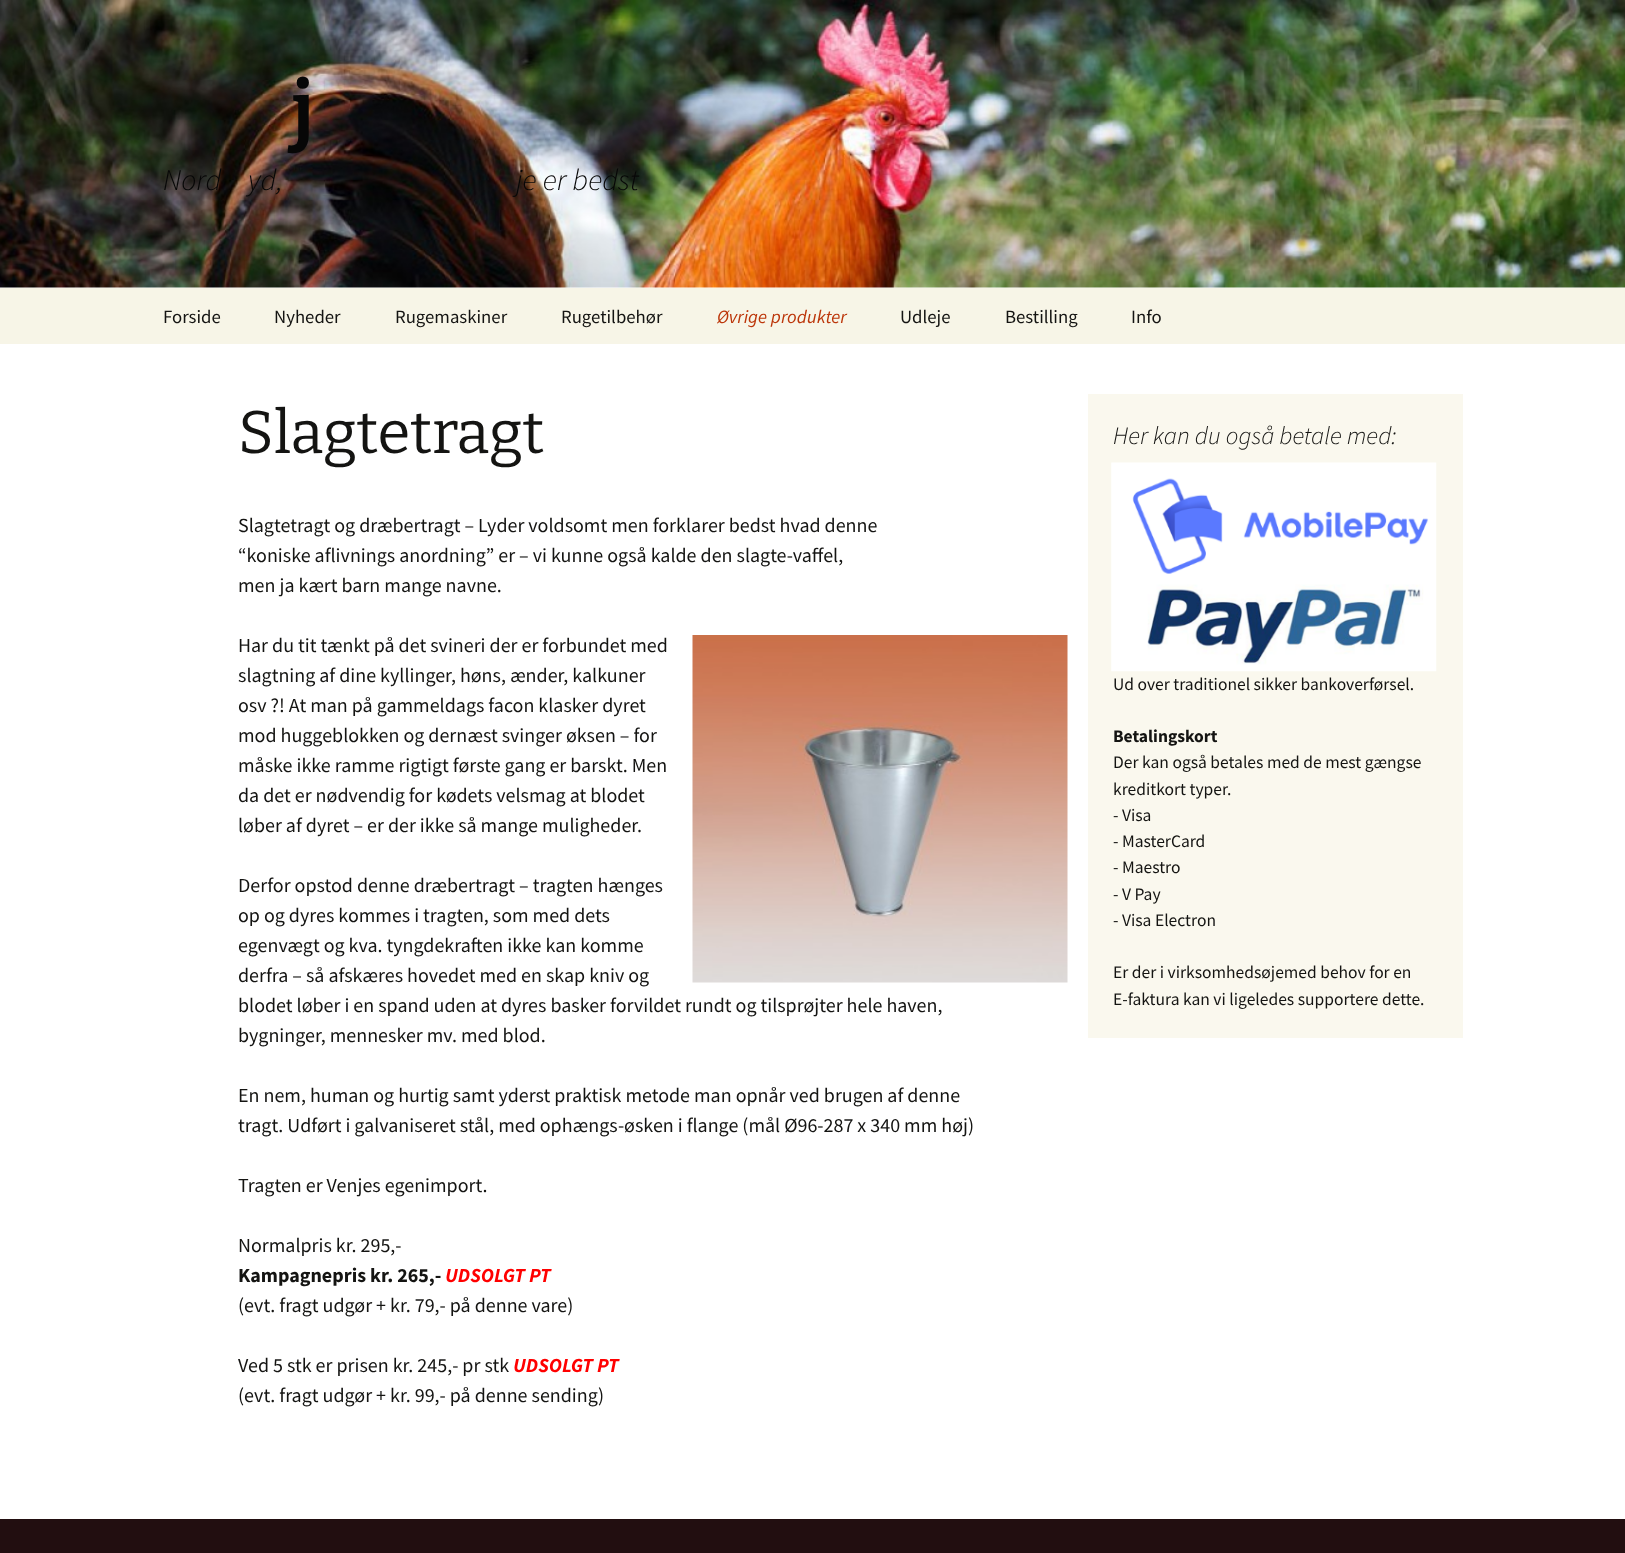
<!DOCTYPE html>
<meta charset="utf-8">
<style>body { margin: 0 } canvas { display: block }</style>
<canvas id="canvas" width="1625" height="1553"></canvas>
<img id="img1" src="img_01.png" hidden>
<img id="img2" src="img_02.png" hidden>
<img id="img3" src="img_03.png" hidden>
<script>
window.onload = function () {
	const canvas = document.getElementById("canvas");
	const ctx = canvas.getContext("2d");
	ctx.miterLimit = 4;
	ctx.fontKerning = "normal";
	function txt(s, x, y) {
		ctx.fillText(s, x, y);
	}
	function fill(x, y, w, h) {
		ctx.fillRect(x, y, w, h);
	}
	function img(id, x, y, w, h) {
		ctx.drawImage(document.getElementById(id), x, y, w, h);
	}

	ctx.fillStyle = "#FFFFFF";
	fill(0, 0, 1625, 1553);
	img("img1", 0, 0, 1625, 288);
	ctx.fillStyle = "#F7F5E7";
	fill(0, 288, 1625, 56);
	img("img2", 692, 635, 376, 348);
	ctx.fillStyle = "#FAF8EE";
	fill(1088, 394, 375, 644);
	img("img3", 1111, 462, 326, 210);
	ctx.fillStyle = "#220E10";
	fill(0, 1519, 1625, 34);
	ctx.font = "bold 75px Bitter";
	ctx.fillStyle = "#070707";
	txt("j", 292, 135);
	ctx.font = "italic 300 30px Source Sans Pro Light";
	txt("Nord", 163, 190);
	txt("yd,", 248, 190);
	txt("je er bedst", 516, 190);
	ctx.font = "18.75px Source Sans Pro";
	ctx.fillStyle = "#141412";
	txt("Forside", 163, 323);
	txt("Nyheder", 274, 323);
	txt("Rugemaskiner", 395, 323);
	txt("Rugetilbehør", 561, 323);
	ctx.font = "italic 18.75px Source Sans Pro";
	ctx.fillStyle = "#BC360A";
	txt("Øvrige produkter", 717, 323);
	ctx.font = "18.75px Source Sans Pro";
	ctx.fillStyle = "#141412";
	txt("Udleje", 900, 323);
	txt("Bestilling", 1005, 323);
	txt("Info", 1131, 323);
	ctx.font = "60px Bitter";
	txt("Slagtetragt", 238, 453);
	ctx.font = "20px Source Sans Pro";
	txt("Slagtetragt og dræbertragt – Lyder voldsomt men forklarer bedst hvad denne", 238, 532);
	txt("“koniske aflivnings anordning” er – vi kunne også kalde den slagte-vaffel,", 238, 562);
	txt("men ja kært barn mange navne.", 238, 592);
	txt("Har du tit tænkt på det svineri der er forbundet med", 238, 652);
	txt("slagtning af dine kyllinger, høns, ænder, kalkuner", 238, 682);
	txt("osv ?! At man på gammeldags facon klasker dyret", 238, 712);
	txt("mod huggeblokken og dernæst svinger øksen – for", 238, 742);
	txt("måske ikke ramme rigtigt første gang er barskt. Men", 238, 772);
	txt("da det er nødvendig for kødets velsmag at blodet", 238, 802);
	txt("løber af dyret – er der ikke så mange muligheder.", 238, 832);
	txt("Derfor opstod denne dræbertragt – tragten hænges", 238, 892);
	txt("op og dyres kommes i tragten, som med dets", 238, 922);
	txt("egenvægt og kva. tyngdekraften ikke kan komme", 238, 952);
	txt("derfra – så afskæres hovedet med en skap kniv og", 238, 982);
	txt("blodet løber i en spand uden at dyres basker forvildet rundt og tilsprøjter hele haven,", 238, 1012);
	txt("bygninger, mennesker mv. med blod.", 238, 1042);
	txt("En nem, human og hurtig samt yderst praktisk metode man opnår ved brugen af denne", 238, 1102);
	txt("tragt. Udført i galvaniseret stål, med ophængs-øsken i flange (mål Ø96-287 x 340 mm høj)", 238, 1132);
	txt("Tragten er Venjes egenimport.", 238, 1192);
	txt("Normalpris kr. 295,-", 238, 1252);
	ctx.font = "bold 20px Source Sans Pro";
	txt("Kampagnepris kr. 265,-", 238, 1282);
	ctx.font = "italic bold 20px Source Sans Pro";
	ctx.fillStyle = "#FF0000";
	txt("UDSOLGT PT", 445, 1282);
	ctx.font = "20px Source Sans Pro";
	ctx.fillStyle = "#141412";
	txt("(evt. fragt udgør + kr. 79,- på denne vare)", 238, 1312);
	txt("Ved 5 stk er prisen kr. 245,- pr stk", 238, 1372);
	ctx.font = "italic bold 20px Source Sans Pro";
	ctx.fillStyle = "#FF0000";
	txt("UDSOLGT PT", 513, 1372);
	ctx.font = "20px Source Sans Pro";
	ctx.fillStyle = "#141412";
	txt("(evt. fragt udgør + kr. 99,- på denne sending)", 238, 1402);
	ctx.font = "italic 300 25px Source Sans Pro Light";
	txt("Her kan du også betale med:", 1113, 444);
	ctx.font = "17.5px Source Sans Pro";
	txt("Ud over traditionel sikker bankoverførsel.", 1113, 690);
	ctx.font = "bold 17.5px Source Sans Pro";
	txt("Betalingskort", 1113, 742);
	ctx.font = "17.5px Source Sans Pro";
	txt("Der kan også betales med de mest gængse", 1113, 768);
	txt("kreditkort typer.", 1113, 795);
	txt("- Visa", 1113, 821);
	txt("- MasterCard", 1113, 847);
	txt("- Maestro", 1113, 873);
	txt("- V Pay", 1113, 900);
	txt("- Visa Electron", 1113, 926);
	txt("Er der i virksomhedsøjemed behov for en", 1113, 978);
	txt("E-faktura kan vi ligeledes supportere dette.", 1113, 1005);
};
</script>
